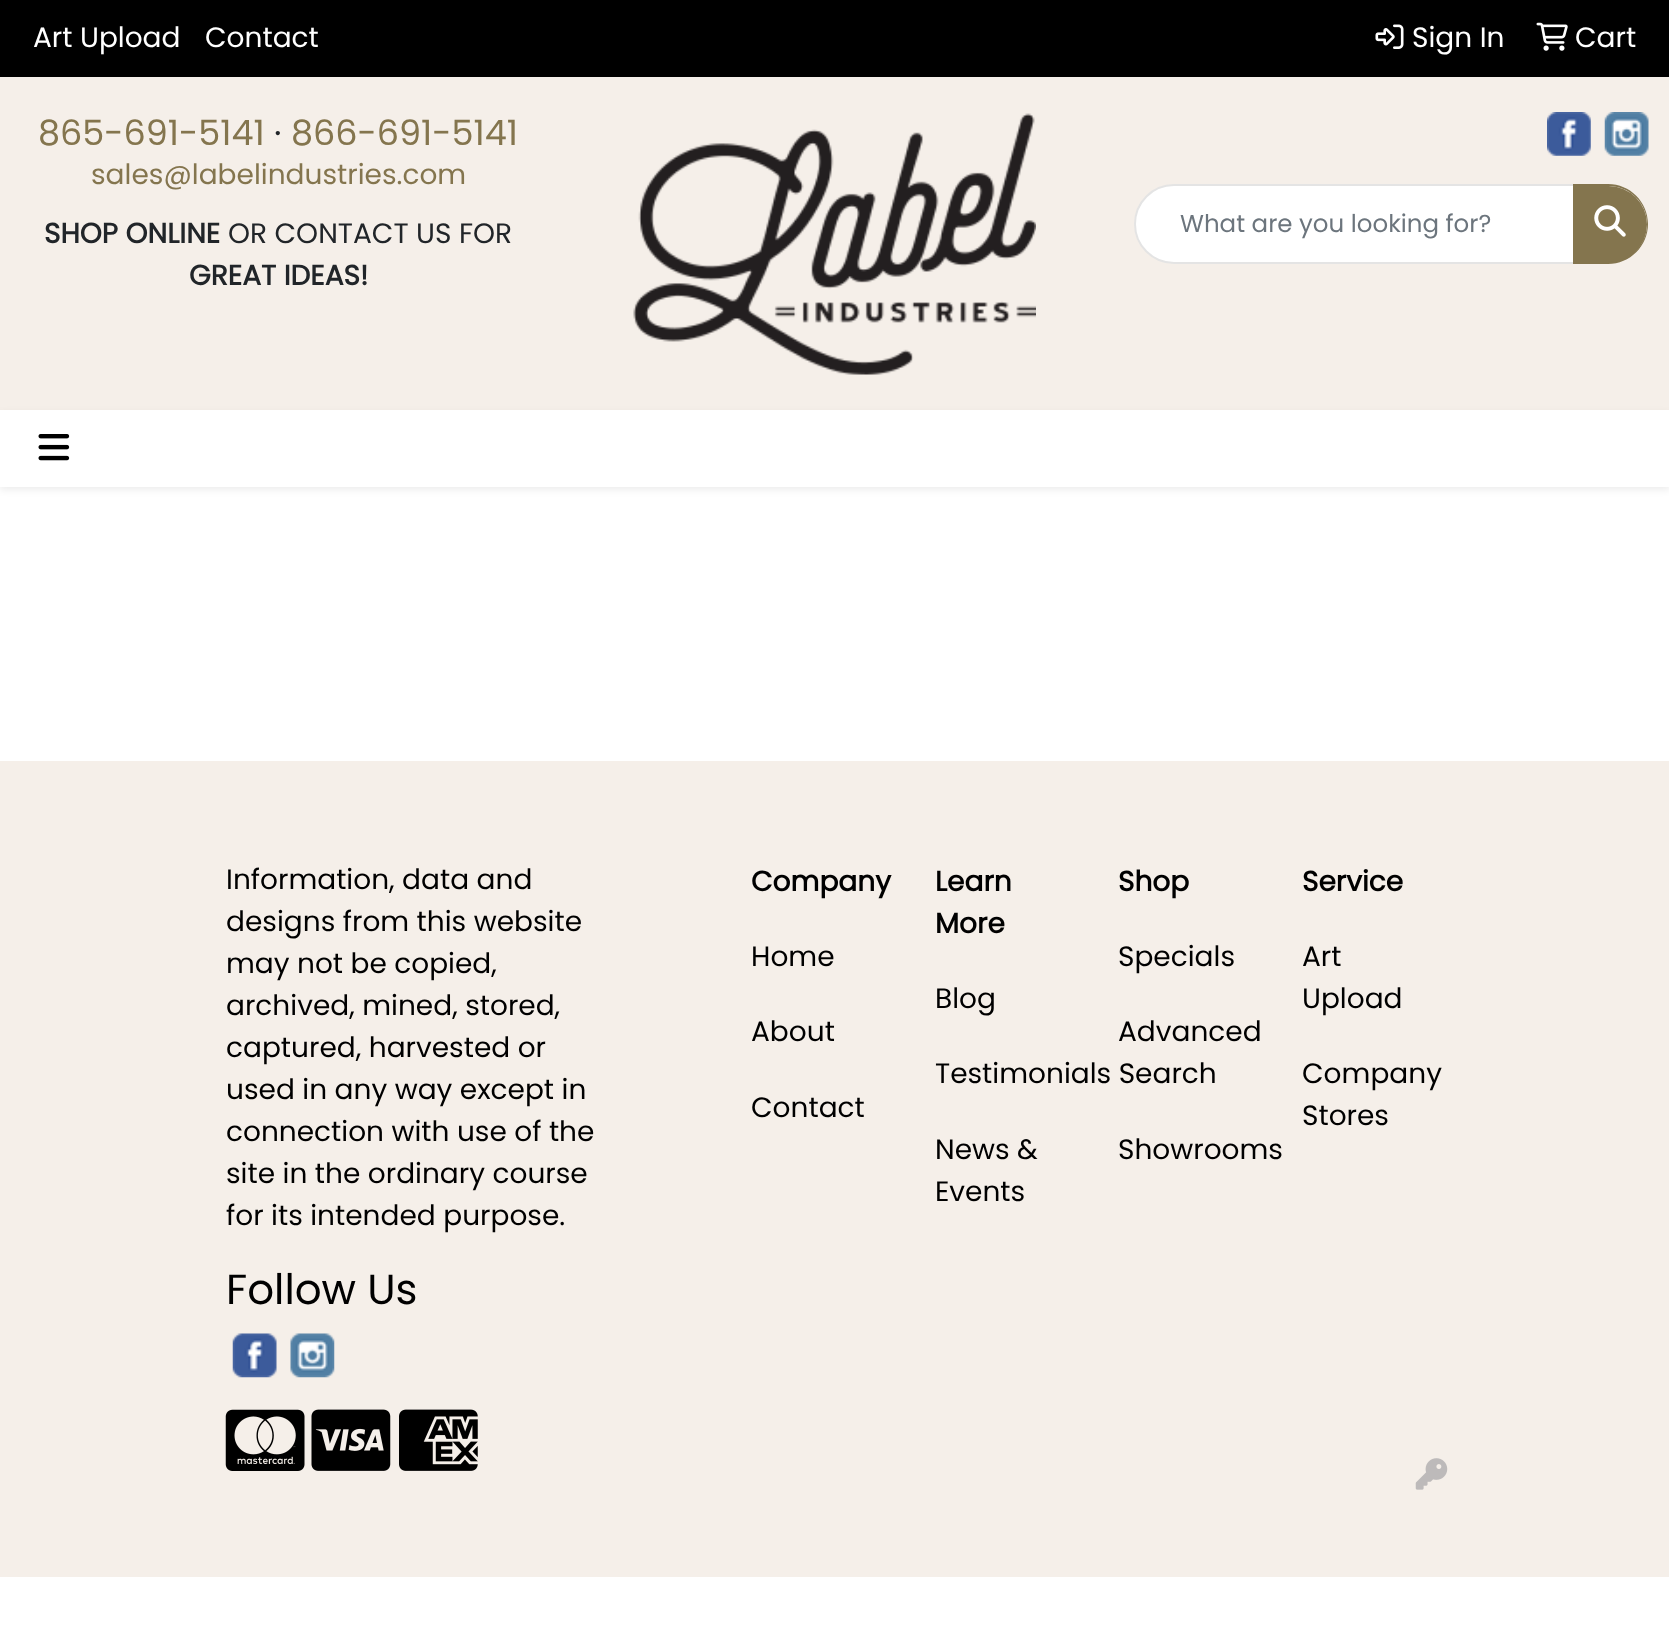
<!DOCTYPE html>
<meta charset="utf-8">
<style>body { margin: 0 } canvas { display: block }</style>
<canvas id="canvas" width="1669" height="1642"></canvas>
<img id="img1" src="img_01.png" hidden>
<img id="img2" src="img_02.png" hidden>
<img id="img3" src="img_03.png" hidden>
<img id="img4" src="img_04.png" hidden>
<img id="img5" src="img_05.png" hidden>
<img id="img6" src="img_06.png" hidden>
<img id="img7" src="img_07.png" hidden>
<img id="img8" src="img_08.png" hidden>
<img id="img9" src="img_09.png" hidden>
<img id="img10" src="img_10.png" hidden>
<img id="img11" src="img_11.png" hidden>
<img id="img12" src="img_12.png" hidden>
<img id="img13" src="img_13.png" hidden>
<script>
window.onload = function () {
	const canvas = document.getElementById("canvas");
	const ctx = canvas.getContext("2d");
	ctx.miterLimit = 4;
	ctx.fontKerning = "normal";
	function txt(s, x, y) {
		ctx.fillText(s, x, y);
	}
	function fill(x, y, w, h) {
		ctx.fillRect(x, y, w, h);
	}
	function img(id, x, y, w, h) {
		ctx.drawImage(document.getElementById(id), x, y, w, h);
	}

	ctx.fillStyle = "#FFFFFF";
	fill(0, 0, 1669, 1642);
	ctx.fillStyle = "#F5EFE9";
	fill(0, 77, 1669, 333);
	ctx.fillStyle = "#000000";
	fill(0, 0, 1669, 77);
	img("img1", 1375, 24, 29, 25);
	img("img2", 1536, 22, 32, 29);
	img("img3", 633, 113, 403, 262);
	img("img4", 1547, 112, 44, 44);
	img("img5", 1604, 112, 45, 44);
	ctx.fillStyle = "#FFFFFF";
	ctx.beginPath();
	ctx.roundRect(1135, 185, 439, 78, [39, 0, 0, 39]);
	ctx.fill();
	ctx.strokeStyle = "#E4E4E4";
	ctx.lineWidth = 2;
	ctx.stroke();
	ctx.fillStyle = "#84754E";
	ctx.beginPath();
	ctx.roundRect(1573, 186, 74, 77, [0, 38.5, 38.5, 0]);
	ctx.fill();
	ctx.beginPath();
	ctx.moveTo(1573, 184);
	ctx.lineTo(1608, 184);
	ctx.bezierCurveTo(1630, 184, 1648, 202, 1648, 224);
	ctx.bezierCurveTo(1648, 246, 1630, 264, 1608, 264);
	ctx.lineTo(1573, 264);
	ctx.closePath();
	ctx.moveTo(1573, 186);
	ctx.lineTo(1608, 186);
	ctx.bezierCurveTo(1630, 186, 1647, 203, 1647, 224);
	ctx.bezierCurveTo(1647, 245, 1630, 262, 1608, 262);
	ctx.lineTo(1573, 262);
	ctx.closePath();
	ctx.fill("evenodd");
	img("img6", 1594, 205, 32, 32);
	ctx.fillStyle = "rgba(0, 0, 0, 0.07)";
	ctx.filter = "blur(3.5px)";
	ctx.beginPath();
	ctx.rect(0, 413, 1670, 77);
	ctx.fill();
	ctx.filter = "none";
	ctx.fillStyle = "#FFFFFF";
	fill(0, 410, 1669, 77);
	img("img7", 38, 434, 32, 27);
	ctx.fillStyle = "#F5EFE9";
	fill(0, 761, 1669, 816);
	img("img8", 232, 1333, 45, 45);
	img("img9", 290, 1333, 45, 45);
	img("img10", 225, 1409, 80, 62);
	img("img11", 311, 1409, 80, 62);
	img("img12", 399, 1409, 79, 62);
	img("img13", 1415, 1458, 33, 32);
	ctx.font = "28px Poppins";
	ctx.fillStyle = "#FFFFFF";
	txt("Art Upload", 33, 47);
	txt("Contact", 205, 47);
	txt("Sign In", 1412, 47);
	txt("Cart", 1575, 47);
	ctx.font = "35px Poppins";
	ctx.fillStyle = "#84754E";
	txt("865-691-5141", 38, 145);
	ctx.fillStyle = "#212529";
	txt("·", 274, 145);
	ctx.fillStyle = "#84754E";
	txt("866-691-5141", 291, 145);
	ctx.font = "28px Poppins";
	txt("sales@labelindustries.com", 91, 184);
	ctx.font = "bold 28px Poppins";
	ctx.fillStyle = "#212529";
	txt("SHOP ONLINE", 44, 243);
	ctx.font = "28px Poppins";
	txt("OR CONTACT US FOR", 228, 243);
	ctx.font = "bold 28px Poppins";
	txt("GREAT IDEAS!", 189, 285);
	ctx.font = "24.5px Poppins";
	ctx.fillStyle = "#6C757D";
	txt("What are you looking for?", 1180, 232);
	ctx.font = "28px Poppins";
	ctx.fillStyle = "#000000";
	txt("Information, data and", 226, 889);
	txt("designs from this website", 226, 931);
	txt("may not be copied,", 226, 973);
	txt("archived, mined, stored,", 226, 1015);
	txt("captured, harvested or", 226, 1057);
	txt("used in any way except in", 226, 1099);
	txt("connection with use of the", 226, 1141);
	txt("site in the ordinary course", 226, 1183);
	txt("for its intended purpose.", 226, 1225);
	ctx.font = "42px Poppins";
	txt("Follow Us", 226, 1304);
	ctx.font = "bold 28px Poppins";
	txt("Company", 751, 891);
	ctx.font = "28px Poppins";
	txt("Home", 751, 966);
	txt("About", 751, 1041);
	txt("Contact", 751, 1117);
	ctx.font = "bold 28px Poppins";
	txt("Shop", 1118, 891);
	ctx.font = "28px Poppins";
	txt("Specials", 1118, 966);
	txt("Advanced", 1118, 1041);
	txt("Showrooms", 1118, 1159);
	ctx.font = "bold 28px Poppins";
	txt("Service", 1302, 891);
	ctx.font = "28px Poppins";
	txt("Art", 1302, 966);
	txt("Upload", 1302, 1008);
	txt("Company", 1302, 1083);
	txt("Stores", 1302, 1125);
	ctx.font = "bold 28px Poppins";
	txt("Learn", 935, 891);
	txt("More", 935, 933);
	ctx.font = "28px Poppins";
	txt("Blog", 935, 1008);
	txt("Testimonials Search", 935, 1083);
	txt("News &", 935, 1159);
	txt("Events", 935, 1201);
};
</script>
